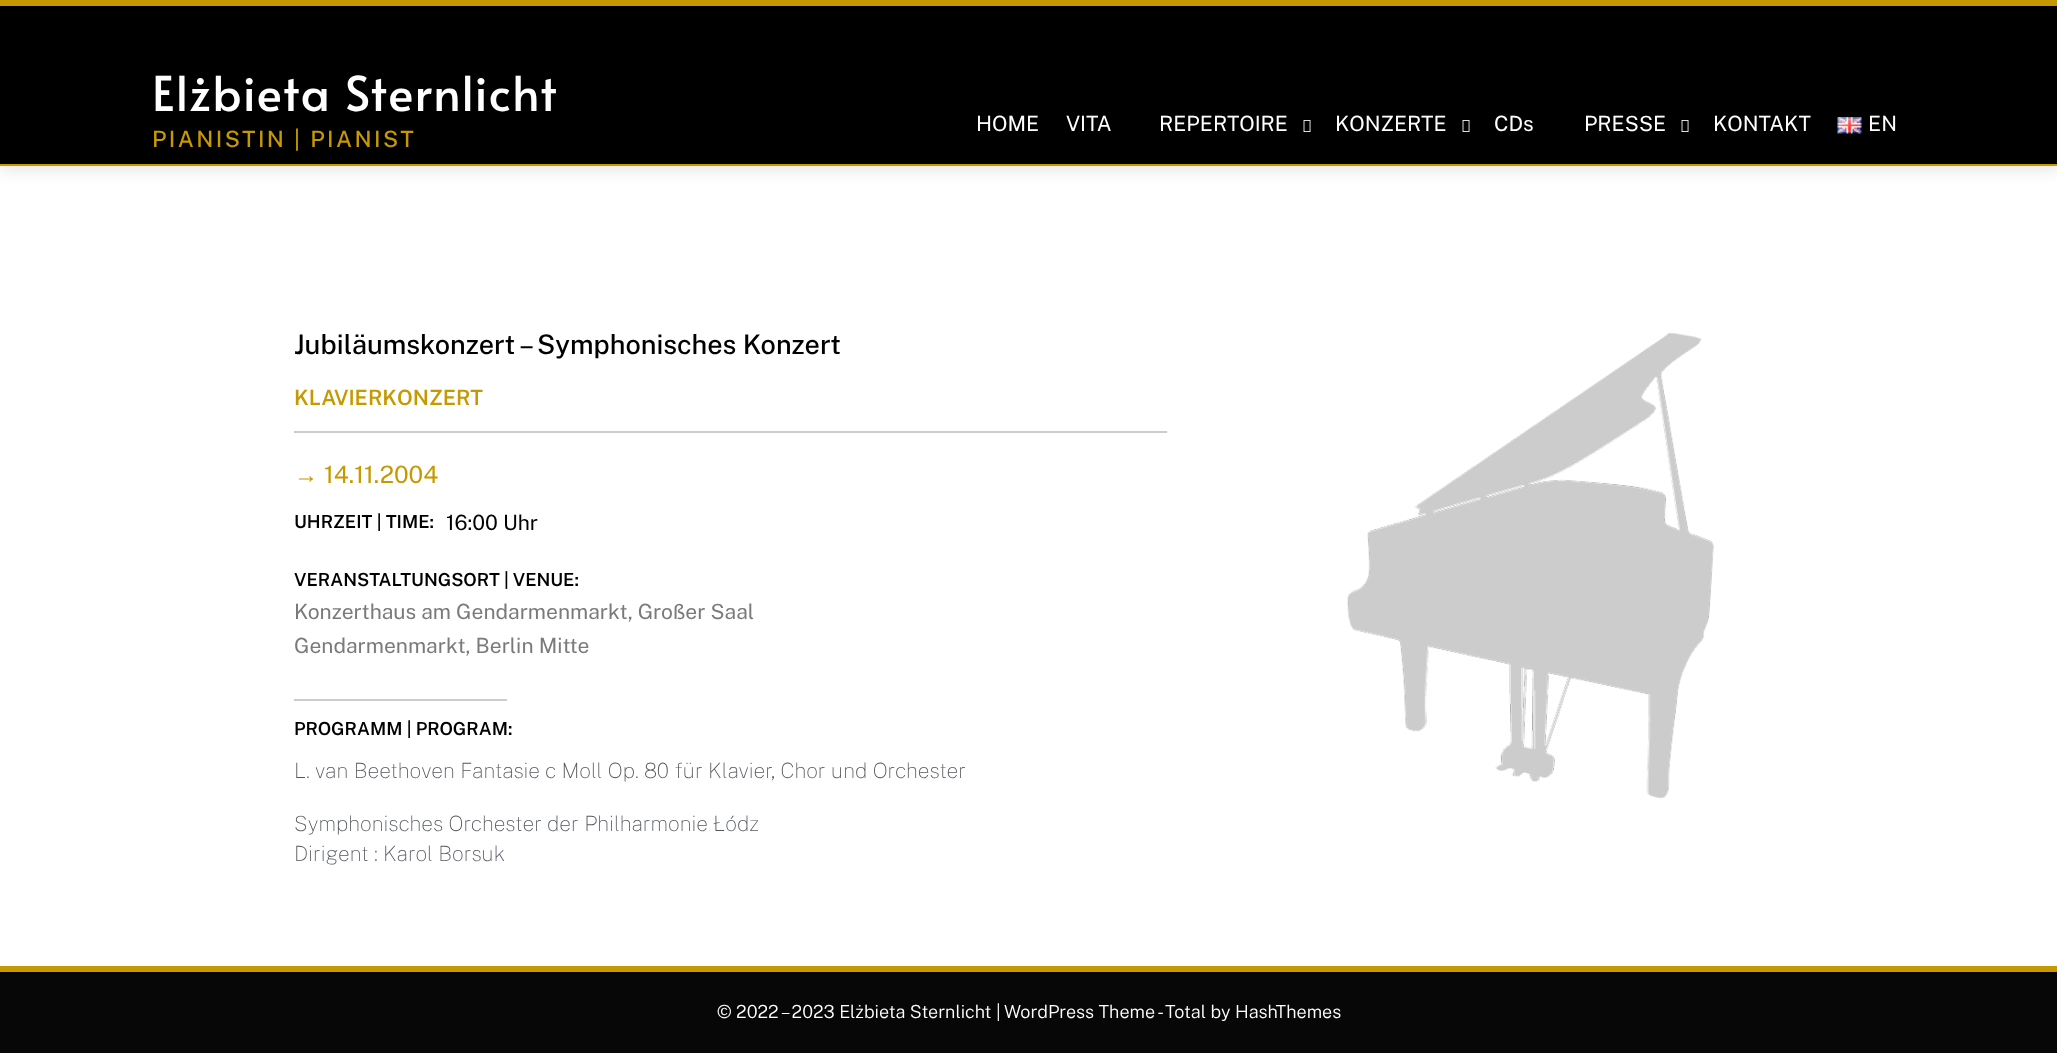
<!DOCTYPE html>
<meta charset="utf-8">
<style>body { margin: 0 } canvas { display: block }</style>
<canvas id="canvas" width="2057" height="1053"></canvas>
<img id="img1" src="img_01.png" hidden>
<img id="img2" src="img_02.png" hidden>
<img id="img3" src="img_03.png" hidden>
<script>
window.onload = function () {
	const canvas = document.getElementById("canvas");
	const ctx = canvas.getContext("2d");
	ctx.miterLimit = 4;
	ctx.fontKerning = "normal";
	function txt(s, x, y) {
		ctx.fillText(s, x, y);
	}
	function fill(x, y, w, h) {
		ctx.fillRect(x, y, w, h);
	}
	function img(id, x, y, w, h) {
		ctx.drawImage(document.getElementById(id), x, y, w, h);
	}

	ctx.fillStyle = "#FFFFFF";
	fill(0, 0, 2057, 1053);
	ctx.fillStyle = "rgba(0, 0, 0, 0.1)";
	ctx.filter = "blur(7.5px)";
	ctx.beginPath();
	ctx.rect(0, 5, 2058, 165);
	ctx.fill();
	ctx.filter = "none";
	ctx.fillStyle = "#000000";
	fill(0, 6, 2057, 158);
	ctx.fillStyle = "#C79900";
	fill(0, 0, 2057, 6);
	fill(0, 164, 2057, 2);
	img("img1", 1303, 120, 8, 12);
	img("img1", 1462, 120, 8, 12);
	img("img1", 1681, 120, 8, 12);
	img("img2", 1837, 117, 25, 17);
	ctx.fillStyle = "#CCCCCC";
	fill(294, 431, 873, 2);
	fill(294, 699, 213, 2);
	img("img3", 1347, 332, 367, 467);
	ctx.fillStyle = "#C79900";
	fill(0, 966, 2057, 6);
	ctx.fillStyle = "#070707";
	fill(0, 972, 2057, 81);
	ctx.letterSpacing = "1.5px";
	ctx.font = "48px Alata";
	ctx.fillStyle = "#FFFFFF";
	txt("Elżbieta Sternlicht", 152, 111);
	ctx.letterSpacing = "2.4px";
	ctx.font = "500 22.5px Public Sans";
	ctx.fillStyle = "#C79900";
	txt("PIANISTIN | PIANIST", 152, 147);
	ctx.letterSpacing = "0px";
	ctx.font = "21px Public Sans";
	ctx.fillStyle = "#FFFFFF";
	txt("HOME", 976, 131);
	txt("VITA", 1066, 131);
	txt("REPERTOIRE", 1159, 131);
	txt("KONZERTE", 1335, 131);
	txt("CDs", 1494, 131);
	txt("PRESSE", 1584, 131);
	txt("KONTAKT", 1713, 131);
	txt("EN", 1868, 131);
	ctx.font = "500 27px Public Sans";
	ctx.fillStyle = "#000000";
	txt("Jubiläumskonzert – Symphonisches Konzert", 294, 354);
	ctx.font = "600 21px Public Sans";
	ctx.fillStyle = "#C79900";
	txt("KLAVIERKONZERT", 294, 405);
	ctx.font = "24px Liberation Sans";
	txt("→", 294, 483);
	ctx.font = "24px Public Sans";
	txt("14.11.2004", 324, 483);
	ctx.font = "600 18px Public Sans";
	ctx.fillStyle = "#000000";
	txt("UHRZEIT | TIME:", 294, 528);
	ctx.font = "21px Public Sans";
	txt("16:00 Uhr", 446, 530);
	ctx.font = "600 18px Public Sans";
	txt("VERANSTALTUNGSORT | VENUE:", 294, 586);
	ctx.font = "21px Public Sans";
	ctx.fillStyle = "#7A7A7A";
	txt("Konzerthaus am Gendarmenmarkt, Großer Saal", 294, 619);
	txt("Gendarmenmarkt, Berlin Mitte", 294, 653);
	ctx.font = "600 18px Public Sans";
	ctx.fillStyle = "#000000";
	txt("PROGRAMM | PROGRAM:", 294, 735);
	ctx.font = "100 21px Public Sans";
	ctx.fillStyle = "#54595F";
	txt("L. van Beethoven Fantasie c Moll Op. 80 für Klavier, Chor und Orchester", 294, 778);
	txt("Symphonisches Orchester der Philharmonie Łódz", 294, 831);
	txt("Dirigent : Karol Borsuk", 294, 861);
	ctx.font = "300 18px Public Sans";
	ctx.fillStyle = "#FFFFFF";
	txt("© 2022 – 2023 Elżbieta Sternlicht |", 717, 1018);
	txt("WordPress Theme - Total by HashThemes", 1004, 1018);
};
</script>
